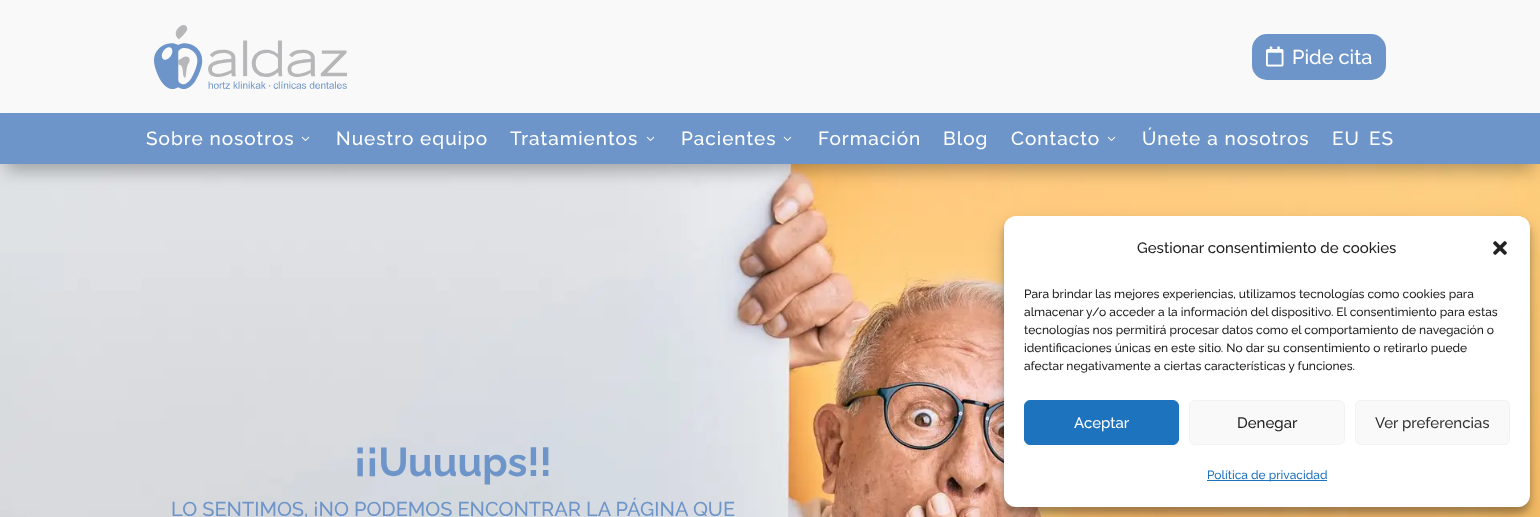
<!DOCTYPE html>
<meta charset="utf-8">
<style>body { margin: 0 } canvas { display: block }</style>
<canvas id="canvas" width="1540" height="517"></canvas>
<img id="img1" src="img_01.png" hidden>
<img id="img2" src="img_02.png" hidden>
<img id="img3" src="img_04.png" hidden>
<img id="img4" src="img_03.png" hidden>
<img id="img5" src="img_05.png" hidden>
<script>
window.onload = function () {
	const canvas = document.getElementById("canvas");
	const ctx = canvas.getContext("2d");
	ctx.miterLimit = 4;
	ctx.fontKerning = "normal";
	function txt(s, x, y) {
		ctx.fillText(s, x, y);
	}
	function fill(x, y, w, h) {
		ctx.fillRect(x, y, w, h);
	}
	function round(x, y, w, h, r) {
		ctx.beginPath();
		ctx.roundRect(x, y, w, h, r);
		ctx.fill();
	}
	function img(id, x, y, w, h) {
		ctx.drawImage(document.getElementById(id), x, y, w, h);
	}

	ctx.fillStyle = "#F9F9F9";
	fill(0, 0, 1540, 517);
	img("img1", 154, 25, 193, 64);
	ctx.fillStyle = "#6E95C9";
	round(1252, 34, 134, 46, 15);
	img("img2", 1266, 46, 18, 21);
	img("img3", 0, 164, 1540, 353);
	ctx.fillStyle = "rgba(0, 0, 0, 0.3)";
	ctx.filter = "blur(9px)";
	ctx.beginPath();
	ctx.rect(6, 131, 1528, 39);
	ctx.fill();
	ctx.filter = "none";
	ctx.fillStyle = "#6E95C9";
	fill(0, 113, 1540, 51);
	img("img4", 301, 136, 9, 5);
	img("img4", 646, 136, 9, 5);
	img("img4", 783, 136, 9, 5);
	img("img4", 1107, 136, 9, 5);
	ctx.fillStyle = "rgba(0, 0, 0, 0.23)";
	ctx.filter = "blur(3px)";
	ctx.beginPath();
	ctx.roundRect(1004, 222, 526, 291, 12);
	ctx.fill();
	ctx.filter = "none";
	ctx.fillStyle = "rgba(0, 0, 0, 0.19)";
	ctx.filter = "blur(10px)";
	ctx.beginPath();
	ctx.roundRect(1004, 226, 526, 291, 12);
	ctx.fill();
	ctx.filter = "none";
	ctx.fillStyle = "#FFFFFF";
	round(1004, 216, 526, 291, 12);
	img("img5", 1493, 241, 14, 14);
	ctx.fillStyle = "#1E73BE";
	ctx.beginPath();
	ctx.roundRect(1024.5, 400.5, 154, 44, 5.5);
	ctx.fill();
	ctx.strokeStyle = "#1E73BE";
	ctx.stroke();
	ctx.fillStyle = "#F9F9F9";
	ctx.beginPath();
	ctx.roundRect(1189.5, 400.5, 155, 44, 5.5);
	ctx.fill();
	ctx.strokeStyle = "#F2F2F2";
	ctx.stroke();
	ctx.beginPath();
	ctx.roundRect(1355.5, 400.5, 154, 44, 5.5);
	ctx.fill();
	ctx.stroke();
	ctx.fillStyle = "#1E73BE";
	fill(1207, 480, 120, 1);
	ctx.font = "500 20px Raleway";
	ctx.fillStyle = "#FFFFFF";
	txt("Pide cita", 1292, 64);
	ctx.letterSpacing = "1px";
	ctx.font = "500 19px Raleway";
	txt("Sobre nosotros", 146, 145);
	txt("Nuestro equipo", 336, 145);
	txt("Tratamientos", 510, 145);
	txt("Pacientes", 681, 145);
	txt("Formación", 818, 145);
	txt("Blog", 943, 145);
	txt("Contacto", 1011, 145);
	txt("Únete a nosotros", 1142, 145);
	txt("EU", 1332, 145);
	txt("ES", 1369, 145);
	ctx.letterSpacing = "0px";
	ctx.font = "bold 40px Raleway";
	ctx.fillStyle = "#6E95C9";
	txt("¡¡Uuuups!!", 354, 476);
	ctx.font = "500 20px Raleway";
	txt("LO SENTIMOS, ¡NO PODEMOS ENCONTRAR LA PÁGINA QUE", 171, 516);
	ctx.font = "500 15px Raleway";
	ctx.fillStyle = "#222222";
	txt("Gestionar consentimiento de cookies", 1137, 253);
	ctx.font = "500 12px Raleway";
	txt("Para brindar las mejores experiencias, utilizamos tecnologías como cookies para", 1024, 298);
	txt("almacenar y/o acceder a la información del dispositivo. El consentimiento para estas", 1024, 316);
	txt("tecnologías nos permitirá procesar datos como el comportamiento de navegación o", 1024, 334);
	txt("identificaciones únicas en este sitio. No dar su consentimiento o retirarlo puede", 1024, 352);
	txt("afectar negativamente a ciertas características y funciones.", 1024, 370);
	ctx.font = "500 15px Raleway";
	ctx.fillStyle = "#FFFFFF";
	txt("Aceptar", 1074, 428);
	ctx.fillStyle = "#222222";
	txt("Denegar", 1237, 428);
	ctx.fillStyle = "#333333";
	txt("Ver preferencias", 1375, 428);
	ctx.font = "500 12px Raleway";
	ctx.fillStyle = "#1E73BE";
	txt("Política de privacidad", 1207, 479);
};
</script>
